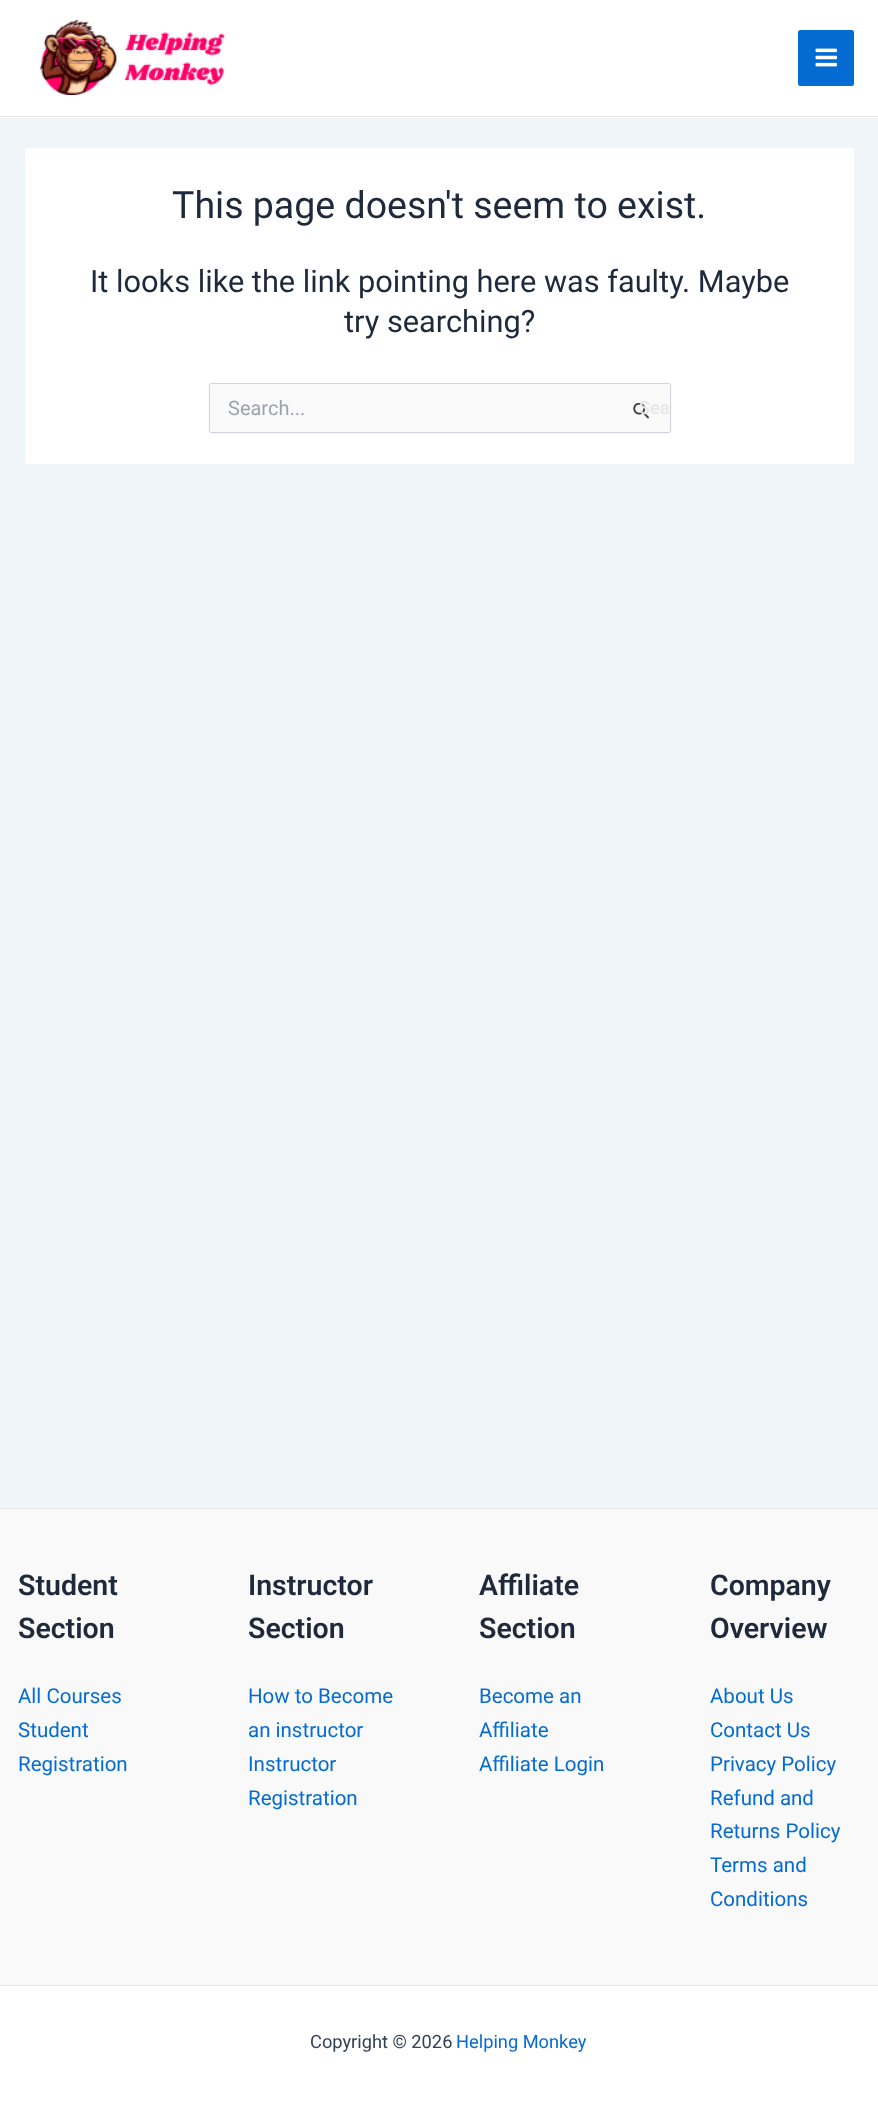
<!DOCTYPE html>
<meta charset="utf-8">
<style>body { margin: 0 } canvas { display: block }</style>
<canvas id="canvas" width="878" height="2111"></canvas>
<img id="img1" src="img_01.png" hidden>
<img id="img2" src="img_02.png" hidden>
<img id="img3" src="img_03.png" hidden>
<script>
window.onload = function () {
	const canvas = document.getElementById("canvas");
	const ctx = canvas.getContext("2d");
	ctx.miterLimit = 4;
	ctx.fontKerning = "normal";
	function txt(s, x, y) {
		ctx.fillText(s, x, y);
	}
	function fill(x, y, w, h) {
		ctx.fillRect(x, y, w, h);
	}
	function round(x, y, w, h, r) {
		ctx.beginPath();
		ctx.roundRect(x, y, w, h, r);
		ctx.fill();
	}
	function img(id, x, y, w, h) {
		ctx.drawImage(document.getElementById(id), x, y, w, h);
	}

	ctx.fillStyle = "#F0F5FA";
	fill(0, 0, 878, 2111);
	ctx.fillStyle = "#FFFFFF";
	fill(0, 0, 878, 118);
	ctx.fillStyle = "#EAEAEA";
	fill(0, 116, 878, 1);
	img("img1", 39, 20, 187, 75);
	ctx.fillStyle = "#046BD2";
	round(798, 30, 56, 56, 2.5);
	img("img2", 815, 48, 22, 19);
	ctx.fillStyle = "#FFFFFF";
	fill(25, 148, 829, 316);
	ctx.fillStyle = "rgba(0, 0, 0, 0.05)";
	ctx.filter = "blur(1px)";
	ctx.beginPath();
	ctx.roundRect(209, 384, 462, 50, 2.5);
	ctx.fill();
	ctx.filter = "none";
	ctx.fillStyle = "#FAFAFA";
	ctx.beginPath();
	ctx.roundRect(209.5, 383.5, 461, 49, 2);
	ctx.fill();
	ctx.strokeStyle = "#D1D5DB";
	ctx.stroke();
	img("img3", 633, 403, 17, 16);
	ctx.fillStyle = "#F9F9F9";
	fill(0, 1509, 878, 476);
	ctx.fillStyle = "#E6E6E6";
	fill(0, 1508, 878, 1);
	ctx.fillStyle = "#FFFFFF";
	fill(0, 1986, 878, 125);
	ctx.fillStyle = "#EAEAEA";
	fill(0, 1985, 878, 1);
	ctx.font = "37.5px Roboto";
	ctx.fillStyle = "#1E293B";
	txt("This page doesn't seem to exist.", 172, 218);
	ctx.font = "30.75px Roboto";
	txt("It looks like the link pointing here was faulty. Maybe", 90, 292);
	txt("try searching?", 344, 332);
	ctx.font = "20px Roboto";
	ctx.fillStyle = "#9CA3AF";
	txt("Search...", 228, 415);
	ctx.font = "500 18.25px Roboto";
	ctx.fillStyle = "#E7E7E7";
	txt("Sea", 639, 414);
	ctx.font = "600 28.5px Roboto";
	ctx.fillStyle = "#1E293B";
	txt("Student", 18, 1595);
	txt("Section", 18, 1638);
	ctx.font = "20.5px Roboto";
	ctx.fillStyle = "#046BD2";
	txt("All Courses", 18, 1703);
	txt("Student", 18, 1737);
	txt("Registration", 18, 1771);
	ctx.font = "600 28.5px Roboto";
	ctx.fillStyle = "#1E293B";
	txt("Instructor", 248, 1595);
	txt("Section", 248, 1638);
	ctx.font = "20.5px Roboto";
	ctx.fillStyle = "#046BD2";
	txt("How to Become", 248, 1703);
	txt("an instructor", 248, 1737);
	txt("Instructor", 248, 1771);
	txt("Registration", 248, 1805);
	ctx.font = "600 28.5px Roboto";
	ctx.fillStyle = "#1E293B";
	txt("Affiliate", 479, 1595);
	txt("Section", 479, 1638);
	ctx.font = "20.5px Roboto";
	ctx.fillStyle = "#046BD2";
	txt("Become an", 479, 1703);
	txt("Affiliate", 479, 1737);
	txt("Affiliate Login", 479, 1771);
	ctx.font = "600 28.5px Roboto";
	ctx.fillStyle = "#1E293B";
	txt("Company", 710, 1595);
	txt("Overview", 710, 1638);
	ctx.font = "20.5px Roboto";
	ctx.fillStyle = "#046BD2";
	txt("About Us", 710, 1703);
	txt("Contact Us", 710, 1737);
	txt("Privacy Policy", 710, 1771);
	txt("Refund and", 710, 1805);
	txt("Returns Policy", 710, 1838);
	txt("Terms and", 710, 1872);
	txt("Conditions", 710, 1906);
	ctx.font = "18.25px Roboto";
	ctx.fillStyle = "#334155";
	txt("Copyright © 2026", 310, 2048);
	ctx.fillStyle = "#046BD2";
	txt("Helping Monkey", 456, 2048);
};
</script>
